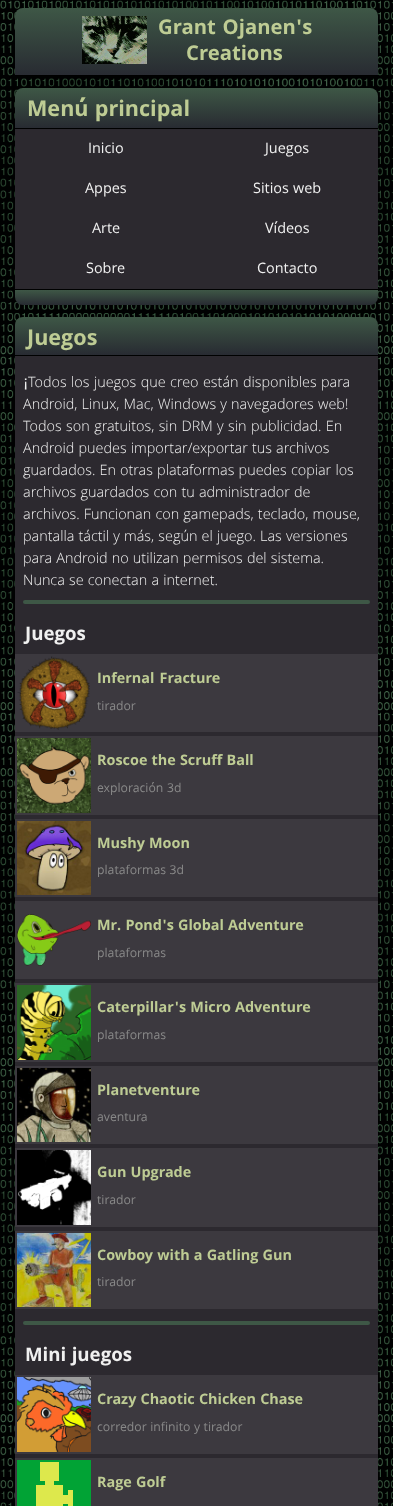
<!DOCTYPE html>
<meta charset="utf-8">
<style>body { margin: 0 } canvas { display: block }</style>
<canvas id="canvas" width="393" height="1506"></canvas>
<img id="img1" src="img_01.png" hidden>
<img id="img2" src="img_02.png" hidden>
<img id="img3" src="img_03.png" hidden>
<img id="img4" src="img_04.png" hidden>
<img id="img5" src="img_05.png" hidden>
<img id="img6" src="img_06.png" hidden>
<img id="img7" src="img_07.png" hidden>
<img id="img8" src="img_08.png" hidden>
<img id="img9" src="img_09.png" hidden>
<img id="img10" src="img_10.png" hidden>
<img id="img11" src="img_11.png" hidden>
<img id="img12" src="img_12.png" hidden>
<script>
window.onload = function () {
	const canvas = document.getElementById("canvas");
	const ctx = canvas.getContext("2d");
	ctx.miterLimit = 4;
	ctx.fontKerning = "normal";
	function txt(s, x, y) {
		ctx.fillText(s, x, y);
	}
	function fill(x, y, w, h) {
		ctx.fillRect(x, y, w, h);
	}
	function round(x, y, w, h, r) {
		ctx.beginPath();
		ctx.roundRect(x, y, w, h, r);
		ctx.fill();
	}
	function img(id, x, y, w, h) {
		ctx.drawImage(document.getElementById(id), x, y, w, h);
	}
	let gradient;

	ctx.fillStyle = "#FFFFFF";
	fill(0, 0, 393, 1506);
	img("img1", 0, 0, 393, 1506);
	gradient = ctx.createLinearGradient(197, 8, 197, 75);
	gradient.addColorStop(0, "#3E5746");
	gradient.addColorStop(1, "#282B32");
	ctx.fillStyle = gradient;
	ctx.beginPath();
	ctx.roundRect(15, 8, 363, 67, [8, 8, 0, 0]);
	ctx.fill();
	ctx.fillStyle = "#000000";
	fill(15, 75, 363, 1);
	img("img2", 82, 16, 65, 48);
	gradient = ctx.createLinearGradient(197, 88, 197, 128);
	gradient.addColorStop(0, "#3E5746");
	gradient.addColorStop(1, "#282B32");
	ctx.fillStyle = gradient;
	ctx.beginPath();
	ctx.roundRect(15, 88, 363, 40, [8, 8, 0, 0]);
	ctx.fill();
	ctx.fillStyle = "#000000";
	fill(15, 128, 363, 1);
	ctx.fillStyle = "#2C292F";
	fill(15, 129, 363, 160);
	gradient = ctx.createLinearGradient(197, 290, 197, 305);
	gradient.addColorStop(0, "#3E5746");
	gradient.addColorStop(1, "#282B32");
	ctx.fillStyle = gradient;
	ctx.beginPath();
	ctx.roundRect(15, 290, 363, 15, [0, 0, 8, 8]);
	ctx.fill();
	gradient = ctx.createLinearGradient(197, 317, 197, 355);
	gradient.addColorStop(0, "#3E5746");
	gradient.addColorStop(1, "#282B32");
	ctx.fillStyle = gradient;
	ctx.beginPath();
	ctx.roundRect(15, 317, 363, 38, [8, 8, 0, 0]);
	ctx.fill();
	ctx.fillStyle = "#2C292F";
	fill(15, 356, 363, 1102);
	ctx.fillStyle = "#3E5746";
	round(23, 600, 347, 4, 2);
	ctx.fillStyle = "#3C393F";
	fill(15, 654, 363, 78);
	img("img3", 17, 656, 73, 74);
	fill(15, 736, 363, 79);
	img("img4", 17, 738, 74, 75);
	fill(15, 819, 363, 78);
	img("img5", 17, 821, 74, 74);
	fill(15, 901, 363, 78);
	img("img6", 17, 914, 74, 52);
	fill(15, 983, 363, 79);
	img("img7", 17, 985, 74, 75);
	fill(15, 1066, 363, 78);
	img("img8", 17, 1068, 74, 74);
	fill(15, 1148, 363, 79);
	img("img9", 17, 1150, 74, 75);
	fill(15, 1231, 363, 78);
	img("img10", 17, 1233, 74, 74);
	ctx.fillStyle = "#3E5746";
	round(23, 1321, 347, 4, 2);
	ctx.fillStyle = "#3C393F";
	fill(15, 1375, 363, 79);
	img("img11", 17, 1377, 74, 75);
	fill(15, 1458, 363, 48);
	img("img12", 17, 1460, 74, 46);
	ctx.wordSpacing = "1px";
	ctx.font = "bold 22.5px Khula";
	ctx.fillStyle = "#BECC94";
	txt("Grant Ojanen's", 158, 34);
	ctx.wordSpacing = "0px";
	txt("Creations", 186, 60);
	ctx.font = "bold 24px Khula";
	txt("Menú principal", 27, 116);
	ctx.font = "16px Khula";
	ctx.fillStyle = "#F0F0F0";
	txt("Inicio", 88, 153);
	txt("Juegos", 265, 153);
	txt("Appes", 85, 193);
	txt("Sitios web", 253, 193);
	txt("Arte", 92, 233);
	txt("Vídeos", 265, 233);
	txt("Sobre", 86, 273);
	txt("Contacto", 257, 273);
	ctx.font = "bold 24px Khula";
	ctx.fillStyle = "#BECC94";
	txt("Juegos", 27, 345);
	ctx.font = "16px Liberation Sans";
	ctx.fillStyle = "#F0F0F0";
	txt("¡", 23, 387);
	ctx.wordSpacing = "0.25px";
	ctx.font = "300 16px Khula";
	txt("Todos los juegos que creo están disponibles para", 28, 387);
	ctx.wordSpacing = "0px";
	txt("Android, Linux, Mac, Windows y navegadores web!", 23, 409);
	ctx.wordSpacing = "0.25px";
	txt("Todos son gratuitos, sin DRM y sin publicidad. En", 23, 431);
	ctx.wordSpacing = "0px";
	txt("Android puedes importar/exportar tus archivos", 23, 453);
	txt("guardados. En otras plataformas puedes copiar los", 23, 475);
	txt("archivos guardados con tu administrador de", 23, 497);
	txt("archivos. Funcionan con gamepads, teclado, mouse,", 23, 519);
	txt("pantalla táctil y más, según el juego. Las versiones", 23, 541);
	txt("para Android no utilizan permisos del sistema.", 23, 563);
	txt("Nunca se conectan a internet.", 23, 585);
	ctx.font = "bold 20.75px Khula";
	txt("Juegos", 25, 640);
	ctx.wordSpacing = "1px";
	ctx.font = "bold 16px Khula";
	ctx.fillStyle = "#BECC94";
	txt("Infernal Fracture", 97, 683);
	ctx.wordSpacing = "0px";
	ctx.font = "13.6px Khula";
	ctx.fillStyle = "#888888";
	txt("tirador", 97, 710);
	ctx.font = "bold 16px Khula";
	ctx.fillStyle = "#BECC94";
	txt("Roscoe the Scruff Ball", 97, 765);
	ctx.font = "13.6px Khula";
	ctx.fillStyle = "#888888";
	txt("exploración 3d", 97, 792);
	ctx.font = "bold 16px Khula";
	ctx.fillStyle = "#BECC94";
	txt("Mushy Moon", 97, 848);
	ctx.font = "13.6px Khula";
	ctx.fillStyle = "#888888";
	txt("plataformas 3d", 97, 874);
	ctx.font = "bold 16px Khula";
	ctx.fillStyle = "#BECC94";
	txt("Mr. Pond's Global Adventure", 97, 930);
	ctx.font = "13.6px Khula";
	ctx.fillStyle = "#888888";
	txt("plataformas", 97, 957);
	ctx.font = "bold 16px Khula";
	ctx.fillStyle = "#BECC94";
	txt("Caterpillar's Micro Adventure", 97, 1012);
	ctx.font = "13.6px Khula";
	ctx.fillStyle = "#888888";
	txt("plataformas", 97, 1039);
	ctx.font = "bold 16px Khula";
	ctx.fillStyle = "#BECC94";
	txt("Planetventure", 97, 1095);
	ctx.font = "13.6px Khula";
	ctx.fillStyle = "#888888";
	txt("aventura", 97, 1121);
	ctx.font = "bold 16px Khula";
	ctx.fillStyle = "#BECC94";
	txt("Gun Upgrade", 97, 1177);
	ctx.font = "13.6px Khula";
	ctx.fillStyle = "#888888";
	txt("tirador", 97, 1204);
	ctx.font = "bold 16px Khula";
	ctx.fillStyle = "#BECC94";
	txt("Cowboy with a Gatling Gun", 97, 1260);
	ctx.font = "13.6px Khula";
	ctx.fillStyle = "#888888";
	txt("tirador", 97, 1286);
	ctx.font = "bold 20.75px Khula";
	ctx.fillStyle = "#F0F0F0";
	txt("Mini juegos", 25, 1361);
	ctx.font = "bold 16px Khula";
	ctx.fillStyle = "#BECC94";
	txt("Crazy Chaotic Chicken Chase", 97, 1404);
	ctx.font = "13.6px Khula";
	ctx.fillStyle = "#888888";
	txt("corredor infinito y tirador", 97, 1431);
	ctx.font = "bold 16px Khula";
	ctx.fillStyle = "#BECC94";
	txt("Rage Golf", 97, 1487);
};
</script>
